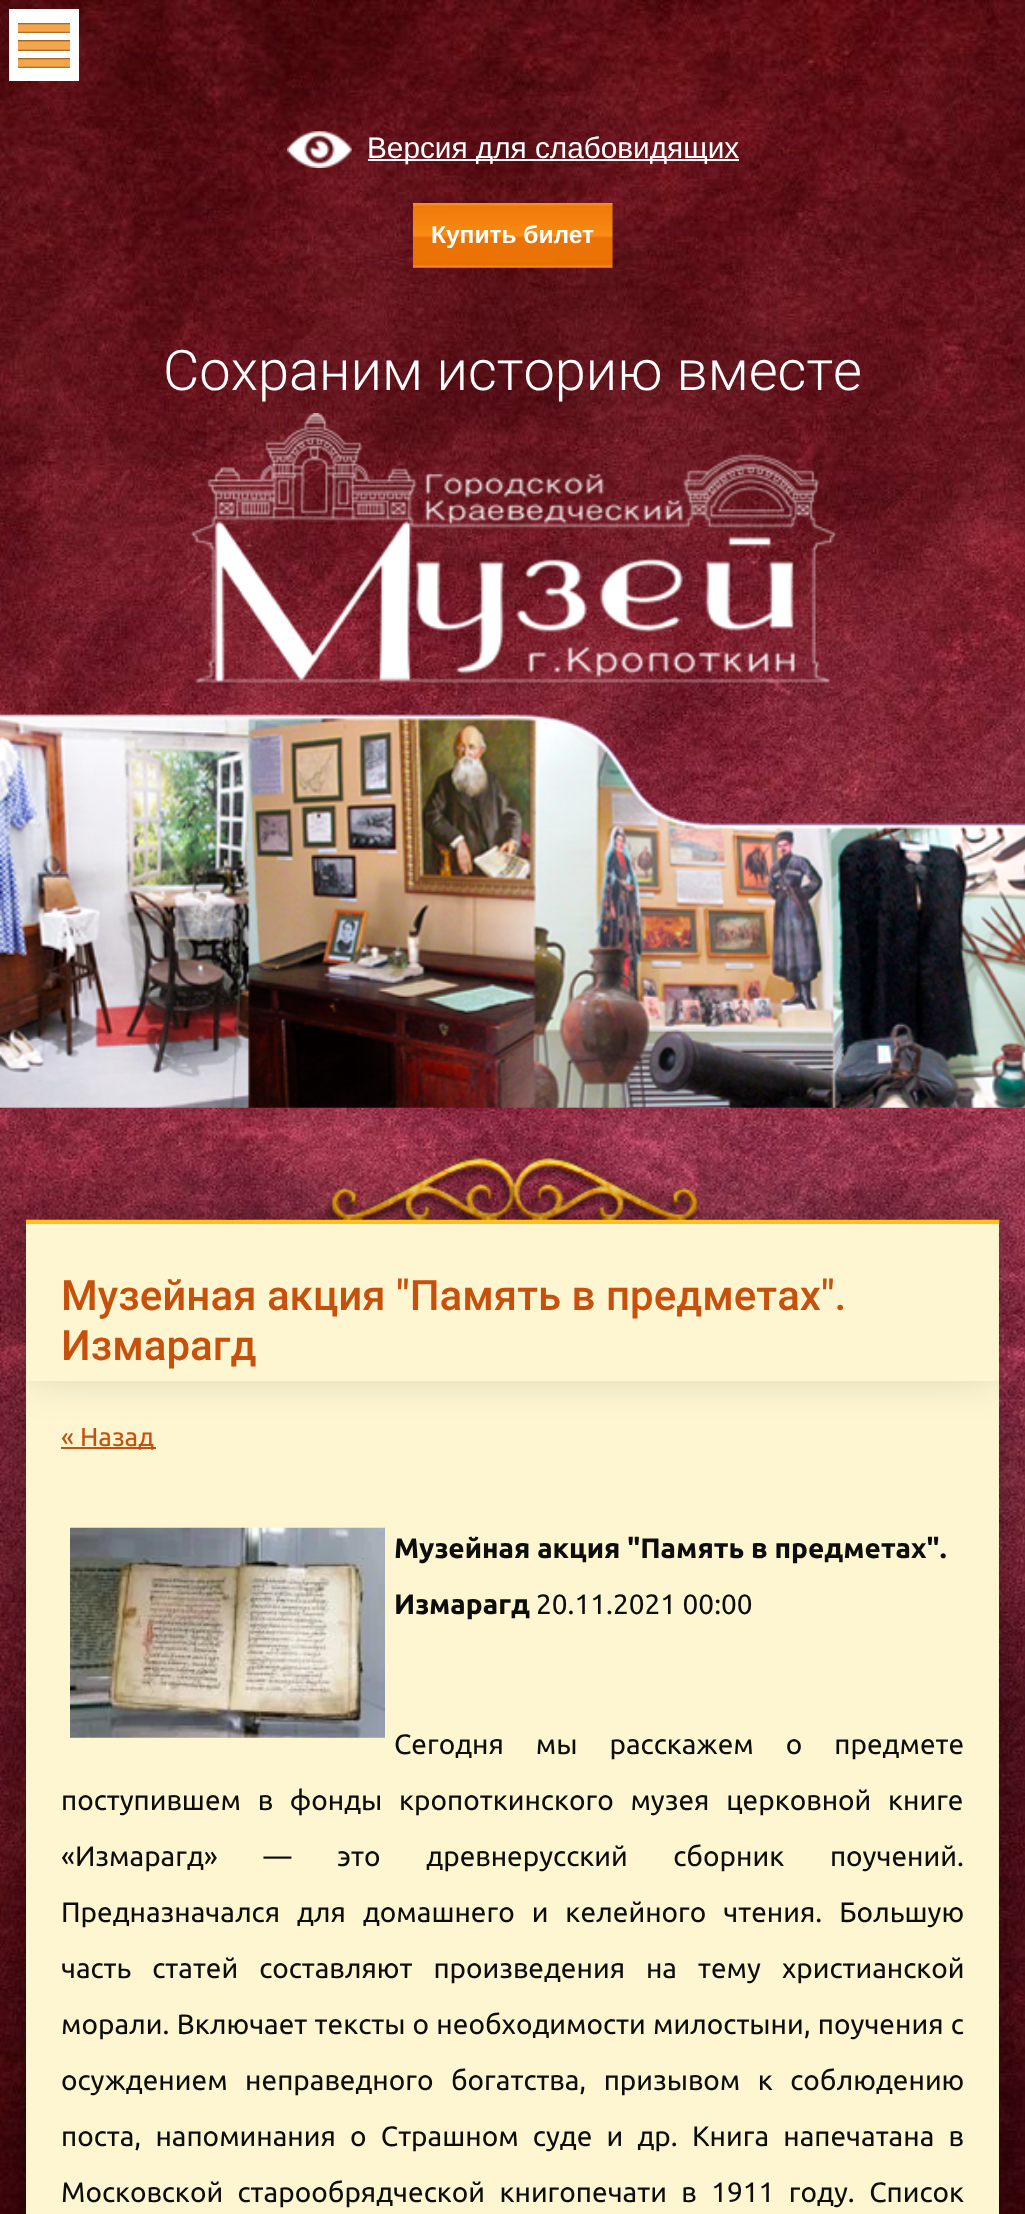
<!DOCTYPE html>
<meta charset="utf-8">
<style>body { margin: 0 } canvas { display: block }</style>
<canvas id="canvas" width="1025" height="2214"></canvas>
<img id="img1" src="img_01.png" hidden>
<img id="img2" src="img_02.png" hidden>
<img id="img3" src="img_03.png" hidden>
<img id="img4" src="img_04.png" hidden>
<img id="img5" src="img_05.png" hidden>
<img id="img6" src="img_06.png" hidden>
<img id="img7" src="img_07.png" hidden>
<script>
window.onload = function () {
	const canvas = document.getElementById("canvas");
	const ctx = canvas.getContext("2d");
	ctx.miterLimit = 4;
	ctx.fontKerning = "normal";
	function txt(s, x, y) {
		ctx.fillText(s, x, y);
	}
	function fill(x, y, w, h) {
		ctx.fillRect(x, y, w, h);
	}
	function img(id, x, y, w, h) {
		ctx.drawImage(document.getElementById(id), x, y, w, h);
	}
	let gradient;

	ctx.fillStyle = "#FFFFFF";
	fill(0, 0, 1025, 2214);
	img("img1", 0, 0, 1025, 2214);
	fill(9, 9, 70, 72);
	gradient = ctx.createLinearGradient(44, 23, 44, 33);
	gradient.addColorStop(0, "#875317");
	gradient.addColorStop(0.2, "#F5A64C");
	gradient.addColorStop(0.8, "#F5A64C");
	gradient.addColorStop(1, "#995E1A");
	ctx.fillStyle = gradient;
	fill(18, 23, 52, 10);
	gradient = ctx.createLinearGradient(44, 40, 44, 51);
	gradient.addColorStop(0, "#875317");
	gradient.addColorStop(0.2, "#F5A64C");
	gradient.addColorStop(0.8, "#F5A64C");
	gradient.addColorStop(1, "#995E1A");
	ctx.fillStyle = gradient;
	fill(18, 40, 52, 11);
	gradient = ctx.createLinearGradient(44, 58, 44, 68);
	gradient.addColorStop(0, "#875317");
	gradient.addColorStop(0.2, "#F5A64C");
	gradient.addColorStop(0.8, "#F5A64C");
	gradient.addColorStop(1, "#995E1A");
	ctx.fillStyle = gradient;
	fill(18, 58, 52, 10);
	img("img2", 287, 131, 65, 37);
	ctx.fillStyle = "#FFFFFF";
	fill(368, 159, 371, 2);
	img("img3", 413, 203, 200, 65);
	img("img4", 190, 413, 646, 270);
	img("img5", 0, 714, 1025, 394);
	img("img6", 26, 1158, 974, 68);
	ctx.fillStyle = "rgba(0, 0, 0, 0.5)";
	ctx.filter = "blur(35px)";
	ctx.beginPath();
	ctx.rect(26, 1381, 973, 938);
	ctx.fill();
	ctx.filter = "none";
	ctx.fillStyle = "#FDF6D1";
	fill(26, 1381, 973, 833);
	ctx.fillStyle = "rgba(0, 0, 0, 0.29)";
	ctx.filter = "blur(28px)";
	ctx.beginPath();
	ctx.rect(26, 1199, 973, 161);
	ctx.fill();
	ctx.filter = "none";
	ctx.fillStyle = "#FDF6D1";
	fill(26, 1224, 973, 157);
	ctx.fillStyle = "#FFC01D";
	fill(26, 1220, 973, 4);
	ctx.fillStyle = "#C7500C";
	fill(61, 1447, 95, 2);
	img("img7", 70, 1527, 315, 211);
	ctx.font = "29.75px Liberation Sans";
	ctx.fillStyle = "#FFFFFF";
	txt("Версия для слабовидящих", 367, 158);
	ctx.font = "bold 24.5px Liberation Sans";
	txt("Купить билет", 431, 243);
	ctx.font = "300 56px Roboto";
	txt("Сохраним историю вместе", 163, 390);
	ctx.font = "500 42px Roboto";
	ctx.fillStyle = "#C7500C";
	txt("Музейная акция \"Память в предметах\".", 61, 1310);
	txt("Измарагд", 61, 1360);
	ctx.font = "26px Ubuntu";
	txt("« Назад", 61, 1446);
	ctx.font = "bold 28px Ubuntu";
	ctx.fillStyle = "#0D0D0D";
	txt("Музейная акция \"Память в предметах\".", 394, 1558);
	txt("Измарагд", 394, 1614);
	ctx.font = "28px Ubuntu";
	txt("20.11.2021 00:00", 536, 1614);
	ctx.wordSpacing = "25.5px";
	txt("Сегодня мы расскажем о предмете", 394, 1754);
	ctx.wordSpacing = "10.25px";
	txt("поступившем в фонды кропоткинского музея церковной книге", 61, 1810);
	ctx.wordSpacing = "39.25px";
	txt("«Измарагд» — это древнерусский сборник поучений.", 61, 1866);
	ctx.wordSpacing = "10.5px";
	txt("Предназначался для домашнего и келейного чтения. Большую", 61, 1922);
	ctx.wordSpacing = "14.5px";
	txt("часть статей составляют произведения на тему христианской", 61, 1978);
	ctx.wordSpacing = "0.75px";
	txt("морали. Включает тексты о необходимости милостыни, поучения с", 61, 2034);
	ctx.wordSpacing = "11px";
	txt("осуждением неправедного богатства, призывом к соблюдению", 61, 2090);
	ctx.wordSpacing = "7.75px";
	txt("поста, напоминания о Страшном суде и др. Книга напечатана в", 61, 2146);
	ctx.wordSpacing = "8px";
	txt("Московской старообрядческой книгопечати в 1911 году. Список", 61, 2202);
};
</script>
